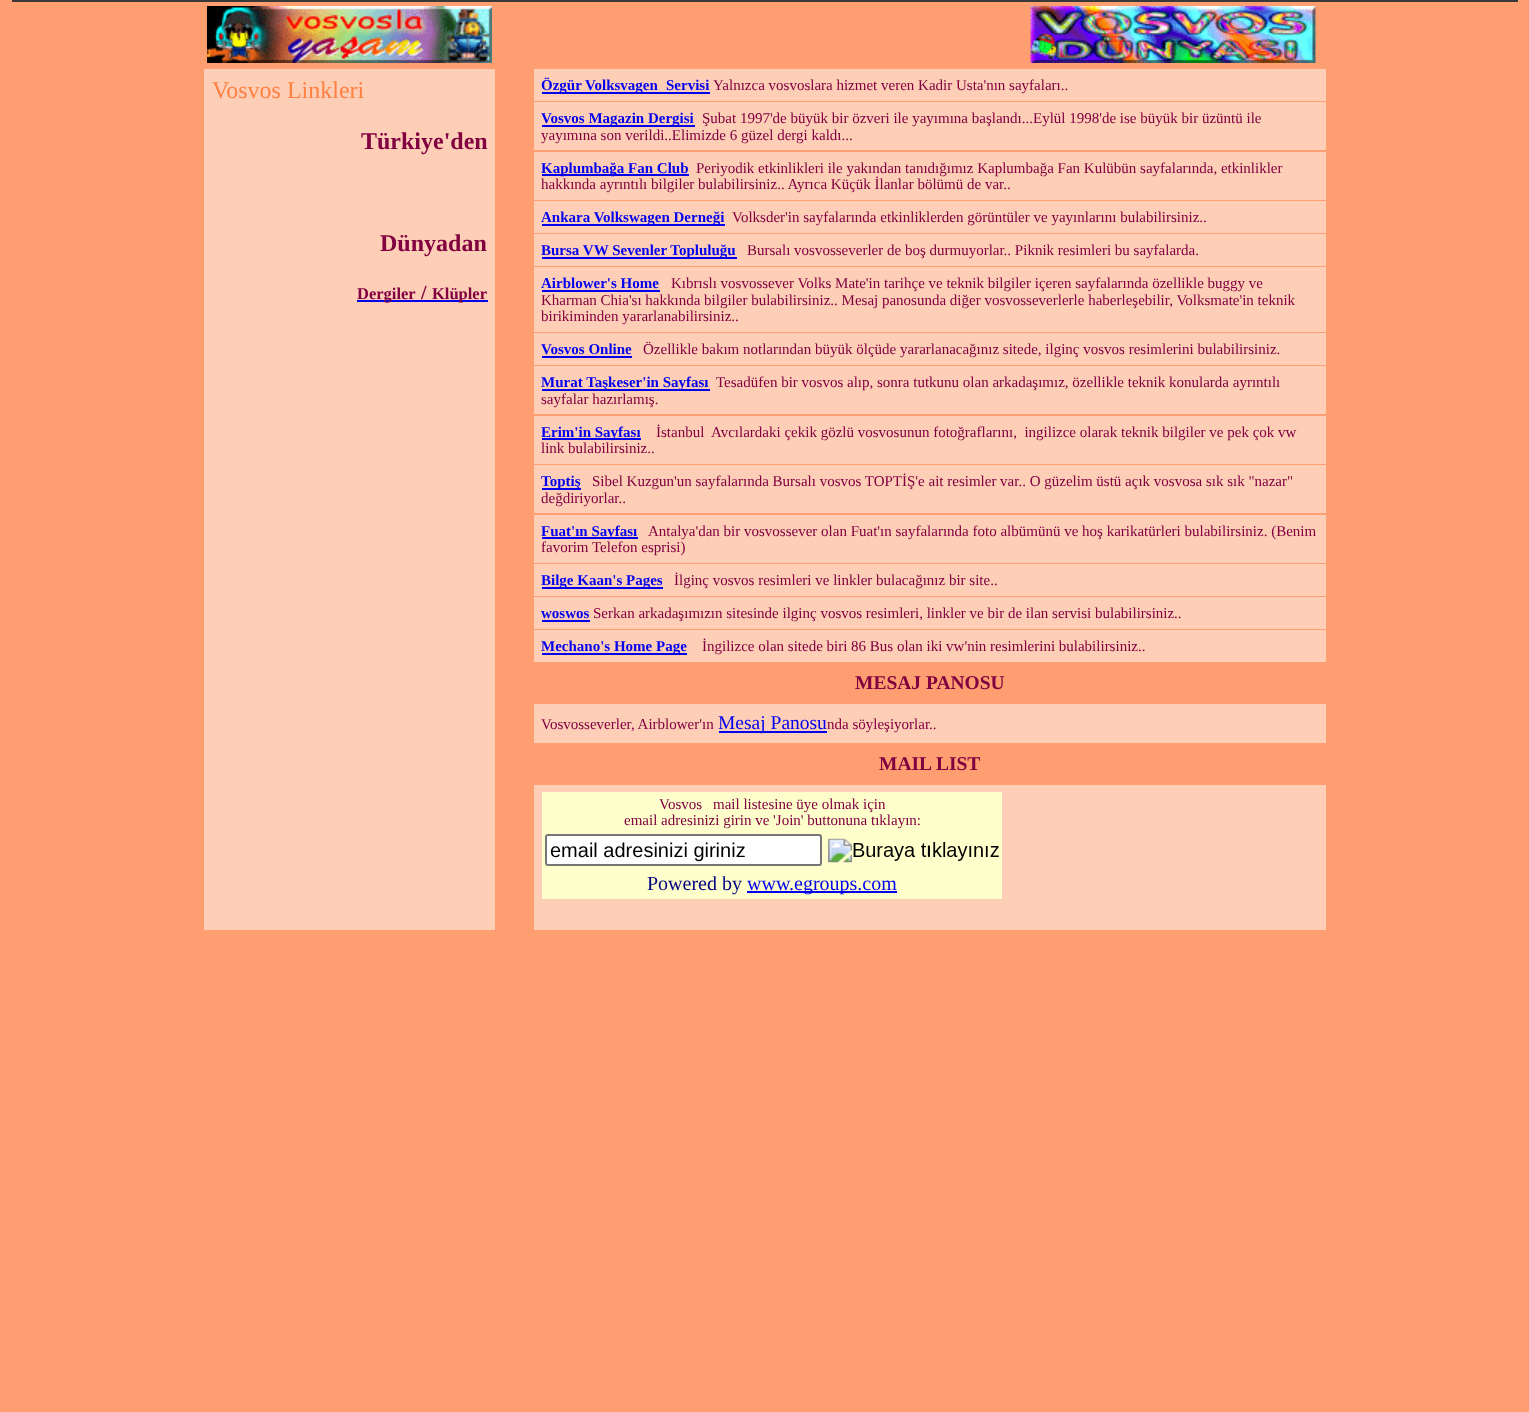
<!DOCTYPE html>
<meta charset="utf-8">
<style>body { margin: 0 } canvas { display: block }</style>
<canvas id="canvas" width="1529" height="1412"></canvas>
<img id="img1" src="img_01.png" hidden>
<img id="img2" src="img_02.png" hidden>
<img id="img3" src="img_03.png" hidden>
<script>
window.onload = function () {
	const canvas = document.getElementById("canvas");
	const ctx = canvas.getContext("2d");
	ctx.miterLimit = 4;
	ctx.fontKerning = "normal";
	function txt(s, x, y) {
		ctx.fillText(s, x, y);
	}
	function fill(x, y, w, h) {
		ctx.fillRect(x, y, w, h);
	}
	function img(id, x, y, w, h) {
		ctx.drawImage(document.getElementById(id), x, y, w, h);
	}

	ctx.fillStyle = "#FF9F71";
	fill(0, 0, 1529, 1412);
	ctx.fillStyle = "#393939";
	fill(12, 0, 1506, 2);
	img("img1", 207, 6, 285, 57);
	img("img2", 1030, 6, 286, 57);
	ctx.fillStyle = "#FFCEB7";
	fill(204, 69, 291, 861);
	ctx.fillStyle = "#0000EE";
	fill(357, 300, 131, 2);
	ctx.fillStyle = "#FFCEB7";
	fill(534, 69, 792, 32);
	ctx.fillStyle = "#0000EE";
	fill(542, 92, 168, 2);
	ctx.fillStyle = "#FFCEB7";
	fill(534, 102, 792, 48);
	ctx.fillStyle = "#0000EE";
	fill(542, 125, 153, 2);
	ctx.fillStyle = "#FFCEB7";
	fill(534, 152, 792, 48);
	ctx.fillStyle = "#0000EE";
	fill(542, 174, 147, 2);
	ctx.fillStyle = "#FFCEB7";
	fill(534, 201, 792, 32);
	ctx.fillStyle = "#0000EE";
	fill(542, 224, 183, 2);
	ctx.fillStyle = "#FFCEB7";
	fill(534, 234, 792, 32);
	ctx.fillStyle = "#0000EE";
	fill(542, 257, 195, 2);
	ctx.fillStyle = "#FFCEB7";
	fill(534, 267, 792, 65);
	ctx.fillStyle = "#0000EE";
	fill(542, 290, 118, 2);
	ctx.fillStyle = "#FFCEB7";
	fill(534, 333, 792, 32);
	ctx.fillStyle = "#0000EE";
	fill(542, 356, 90, 2);
	ctx.fillStyle = "#FFCEB7";
	fill(534, 366, 792, 48);
	ctx.fillStyle = "#0000EE";
	fill(542, 389, 168, 2);
	ctx.fillStyle = "#FFCEB7";
	fill(534, 416, 792, 48);
	ctx.fillStyle = "#0000EE";
	fill(542, 438, 99, 2);
	ctx.fillStyle = "#FFCEB7";
	fill(534, 465, 792, 48);
	ctx.fillStyle = "#0000EE";
	fill(542, 488, 39, 2);
	ctx.fillStyle = "#FFCEB7";
	fill(534, 515, 792, 48);
	ctx.fillStyle = "#0000EE";
	fill(542, 537, 96, 2);
	ctx.fillStyle = "#FFCEB7";
	fill(534, 564, 792, 32);
	ctx.fillStyle = "#0000EE";
	fill(542, 587, 121, 2);
	ctx.fillStyle = "#FFCEB7";
	fill(534, 597, 792, 32);
	ctx.fillStyle = "#0000EE";
	fill(542, 620, 48, 2);
	ctx.fillStyle = "#FFCEB7";
	fill(534, 630, 792, 32);
	ctx.fillStyle = "#0000EE";
	fill(542, 653, 145, 2);
	ctx.fillStyle = "#FFCEB7";
	fill(534, 704, 792, 39);
	ctx.fillStyle = "#0000EE";
	fill(719, 731, 108, 2);
	ctx.fillStyle = "#FFCEB7";
	fill(534, 785, 792, 145);
	ctx.fillStyle = "#FFFFCC";
	fill(542, 792, 460, 107);
	ctx.fillStyle = "#FFFFFF";
	ctx.beginPath();
	ctx.roundRect(546, 835, 275, 30, 2);
	ctx.fill();
	ctx.strokeStyle = "#767676";
	ctx.lineWidth = 2;
	ctx.stroke();
	img("img3", 828, 838, 171, 25);
	ctx.fillStyle = "#0000EE";
	fill(747, 891, 150, 2);
	ctx.font = "24px Liberation Serif";
	ctx.fillStyle = "#FF8040";
	txt("Vosvos Linkleri", 212, 98);
	ctx.font = "bold 24px Liberation Serif";
	ctx.fillStyle = "#800040";
	txt("Türkiye'den", 361, 149);
	txt("Dünyadan", 380, 251);
	ctx.font = "bold 16.5px Liberation Serif";
	txt("Dergiler", 357, 299);
	ctx.font = "bold 20px Liberation Serif";
	txt("/", 421, 299);
	ctx.font = "bold 16.5px Liberation Serif";
	txt("Klüpler", 432, 299);
	ctx.font = "bold 15px Liberation Serif";
	ctx.fillStyle = "#0000EE";
	txt("Özgür Volksvagen", 541, 90);
	txt("Servisi", 666, 90);
	ctx.font = "15px Liberation Serif";
	ctx.fillStyle = "#800040";
	txt("Yalnızca vosvoslara hizmet veren Kadir Usta'nın sayfaları..", 713, 90);
	ctx.font = "bold 15px Liberation Serif";
	ctx.fillStyle = "#0000EE";
	txt("Vosvos Magazin Dergisi", 541, 123);
	ctx.font = "15px Liberation Serif";
	ctx.fillStyle = "#800040";
	txt("Şubat 1997'de büyük bir özveri ile yayımına başlandı...Eylül 1998'de ise büyük bir üzüntü ile", 702, 123);
	txt("yayımına son verildi..Elimizde 6 güzel dergi kaldı...", 541, 140);
	ctx.font = "bold 15px Liberation Serif";
	ctx.fillStyle = "#0000EE";
	txt("Kaplumbağa Fan Club", 541, 173);
	ctx.font = "15px Liberation Serif";
	ctx.fillStyle = "#800040";
	txt("Periyodik etkinlikleri ile yakından tanıdığımız Kaplumbağa Fan Kulübün sayfalarında, etkinlikler", 696, 173);
	txt("hakkında ayrıntılı bilgiler bulabilirsiniz.. Ayrıca Küçük İlanlar bölümü de var..", 541, 189);
	ctx.font = "bold 15px Liberation Serif";
	ctx.fillStyle = "#0000EE";
	txt("Ankara Volkswagen Derneği", 541, 222);
	ctx.font = "15px Liberation Serif";
	ctx.fillStyle = "#800040";
	txt("Volksder'in sayfalarında etkinliklerden görüntüler ve yayınlarını bulabilirsiniz..", 732, 222);
	ctx.font = "bold 15px Liberation Serif";
	ctx.fillStyle = "#0000EE";
	txt("Bursa VW Sevenler Topluluğu", 541, 255);
	ctx.font = "15px Liberation Serif";
	ctx.fillStyle = "#800040";
	txt("Bursalı vosvosseverler de boş durmuyorlar.. Piknik resimleri bu sayfalarda.", 747, 255);
	ctx.font = "bold 15px Liberation Serif";
	ctx.fillStyle = "#0000EE";
	txt("Airblower's Home", 541, 288);
	ctx.font = "15px Liberation Serif";
	ctx.fillStyle = "#800040";
	txt("Kıbrıslı vosvossever Volks Mate'in tarihçe ve teknik bilgiler içeren sayfalarında özellikle buggy ve", 671, 288);
	txt("Kharman Chia'sı hakkında bilgiler bulabilirsiniz.. Mesaj panosunda diğer vosvosseverlerle haberleşebilir, Volksmate'in teknik", 541, 305);
	txt("birikiminden yararlanabilirsiniz..", 541, 321);
	ctx.font = "bold 15px Liberation Serif";
	ctx.fillStyle = "#0000EE";
	txt("Vosvos Online", 541, 354);
	ctx.font = "15px Liberation Serif";
	ctx.fillStyle = "#800040";
	txt("Özellikle bakım notlarından büyük ölçüde yararlanacağınız sitede, ilginç vosvos resimlerini bulabilirsiniz.", 643, 354);
	ctx.font = "bold 15px Liberation Serif";
	ctx.fillStyle = "#0000EE";
	txt("Murat Taşkeser'in Sayfası", 541, 387);
	ctx.font = "15px Liberation Serif";
	ctx.fillStyle = "#800040";
	txt("Tesadüfen bir vosvos alıp, sonra tutkunu olan arkadaşımız, özellikle teknik konularda ayrıntılı", 716, 387);
	txt("sayfalar hazırlamış.", 541, 404);
	ctx.font = "bold 15px Liberation Serif";
	ctx.fillStyle = "#0000EE";
	txt("Erim'in Sayfası", 541, 437);
	ctx.font = "15px Liberation Serif";
	ctx.fillStyle = "#800040";
	txt("İstanbul  Avcılardaki çekik gözlü vosvosunun fotoğraflarını,  ingilizce olarak teknik bilgiler ve pek çok vw", 656, 437);
	txt("link bulabilirsiniz..", 541, 453);
	ctx.font = "bold 15px Liberation Serif";
	ctx.fillStyle = "#0000EE";
	txt("Toptiş", 541, 486);
	ctx.font = "15px Liberation Serif";
	ctx.fillStyle = "#800040";
	txt("Sibel Kuzgun'un sayfalarında Bursalı vosvos TOPTİŞ'e ait resimler var.. O güzelim üstü açık vosvosa sık sık \"nazar\"", 592, 486);
	txt("değdiriyorlar..", 541, 503);
	ctx.font = "bold 15px Liberation Serif";
	ctx.fillStyle = "#0000EE";
	txt("Fuat'ın Sayfası", 541, 536);
	ctx.font = "15px Liberation Serif";
	ctx.fillStyle = "#800040";
	txt("Antalya'dan bir vosvossever olan Fuat'ın sayfalarında foto albümünü ve hoş karikatürleri bulabilirsiniz. (Benim", 648, 536);
	txt("favorim Telefon esprisi)", 541, 552);
	ctx.font = "bold 15px Liberation Serif";
	ctx.fillStyle = "#0000EE";
	txt("Bilge Kaan's Pages", 541, 585);
	ctx.font = "15px Liberation Serif";
	ctx.fillStyle = "#800040";
	txt("İlginç vosvos resimleri ve linkler bulacağınız bir site..", 674, 585);
	ctx.font = "bold 15px Liberation Serif";
	ctx.fillStyle = "#0000EE";
	txt("woswos", 541, 618);
	ctx.font = "15px Liberation Serif";
	ctx.fillStyle = "#800040";
	txt("Serkan arkadaşımızın sitesinde ilginç vosvos resimleri, linkler ve bir de ilan servisi bulabilirsiniz..", 593, 618);
	ctx.font = "bold 15px Liberation Serif";
	ctx.fillStyle = "#0000EE";
	txt("Mechano's Home Page", 541, 651);
	ctx.font = "15px Liberation Serif";
	ctx.fillStyle = "#800040";
	txt("İngilizce olan sitede biri 86 Bus olan iki vw'nin resimlerini bulabilirsiniz..", 702, 651);
	ctx.font = "bold 19.5px Liberation Serif";
	txt("MESAJ PANOSU", 855, 689);
	ctx.font = "15px Liberation Serif";
	txt("Vosvosseverler, Airblower'ın", 541, 729);
	ctx.font = "19.5px Liberation Serif";
	ctx.fillStyle = "#0000EE";
	txt("Mesaj Panosu", 718, 729);
	ctx.font = "15px Liberation Serif";
	ctx.fillStyle = "#800040";
	txt("nda söyleşiyorlar..", 827, 729);
	ctx.font = "bold 19.5px Liberation Serif";
	txt("MAIL LIST", 879, 770);
	ctx.font = "15px Liberation Serif";
	txt("Vosvos", 659, 809);
	txt("mail listesine üye olmak için", 713, 809);
	txt("email adresinizi girin ve 'Join' buttonuna tıklayın:", 624, 825);
	ctx.font = "20px Liberation Sans";
	ctx.fillStyle = "#000000";
	txt("email adresinizi giriniz", 550, 857);
	txt("ı", 926, 856);
	ctx.font = "20px Liberation Serif";
	ctx.fillStyle = "#000080";
	txt("Powered by", 647, 890);
	ctx.fillStyle = "#0000EE";
	txt("www.egroups.com", 747, 890);
};
</script>
